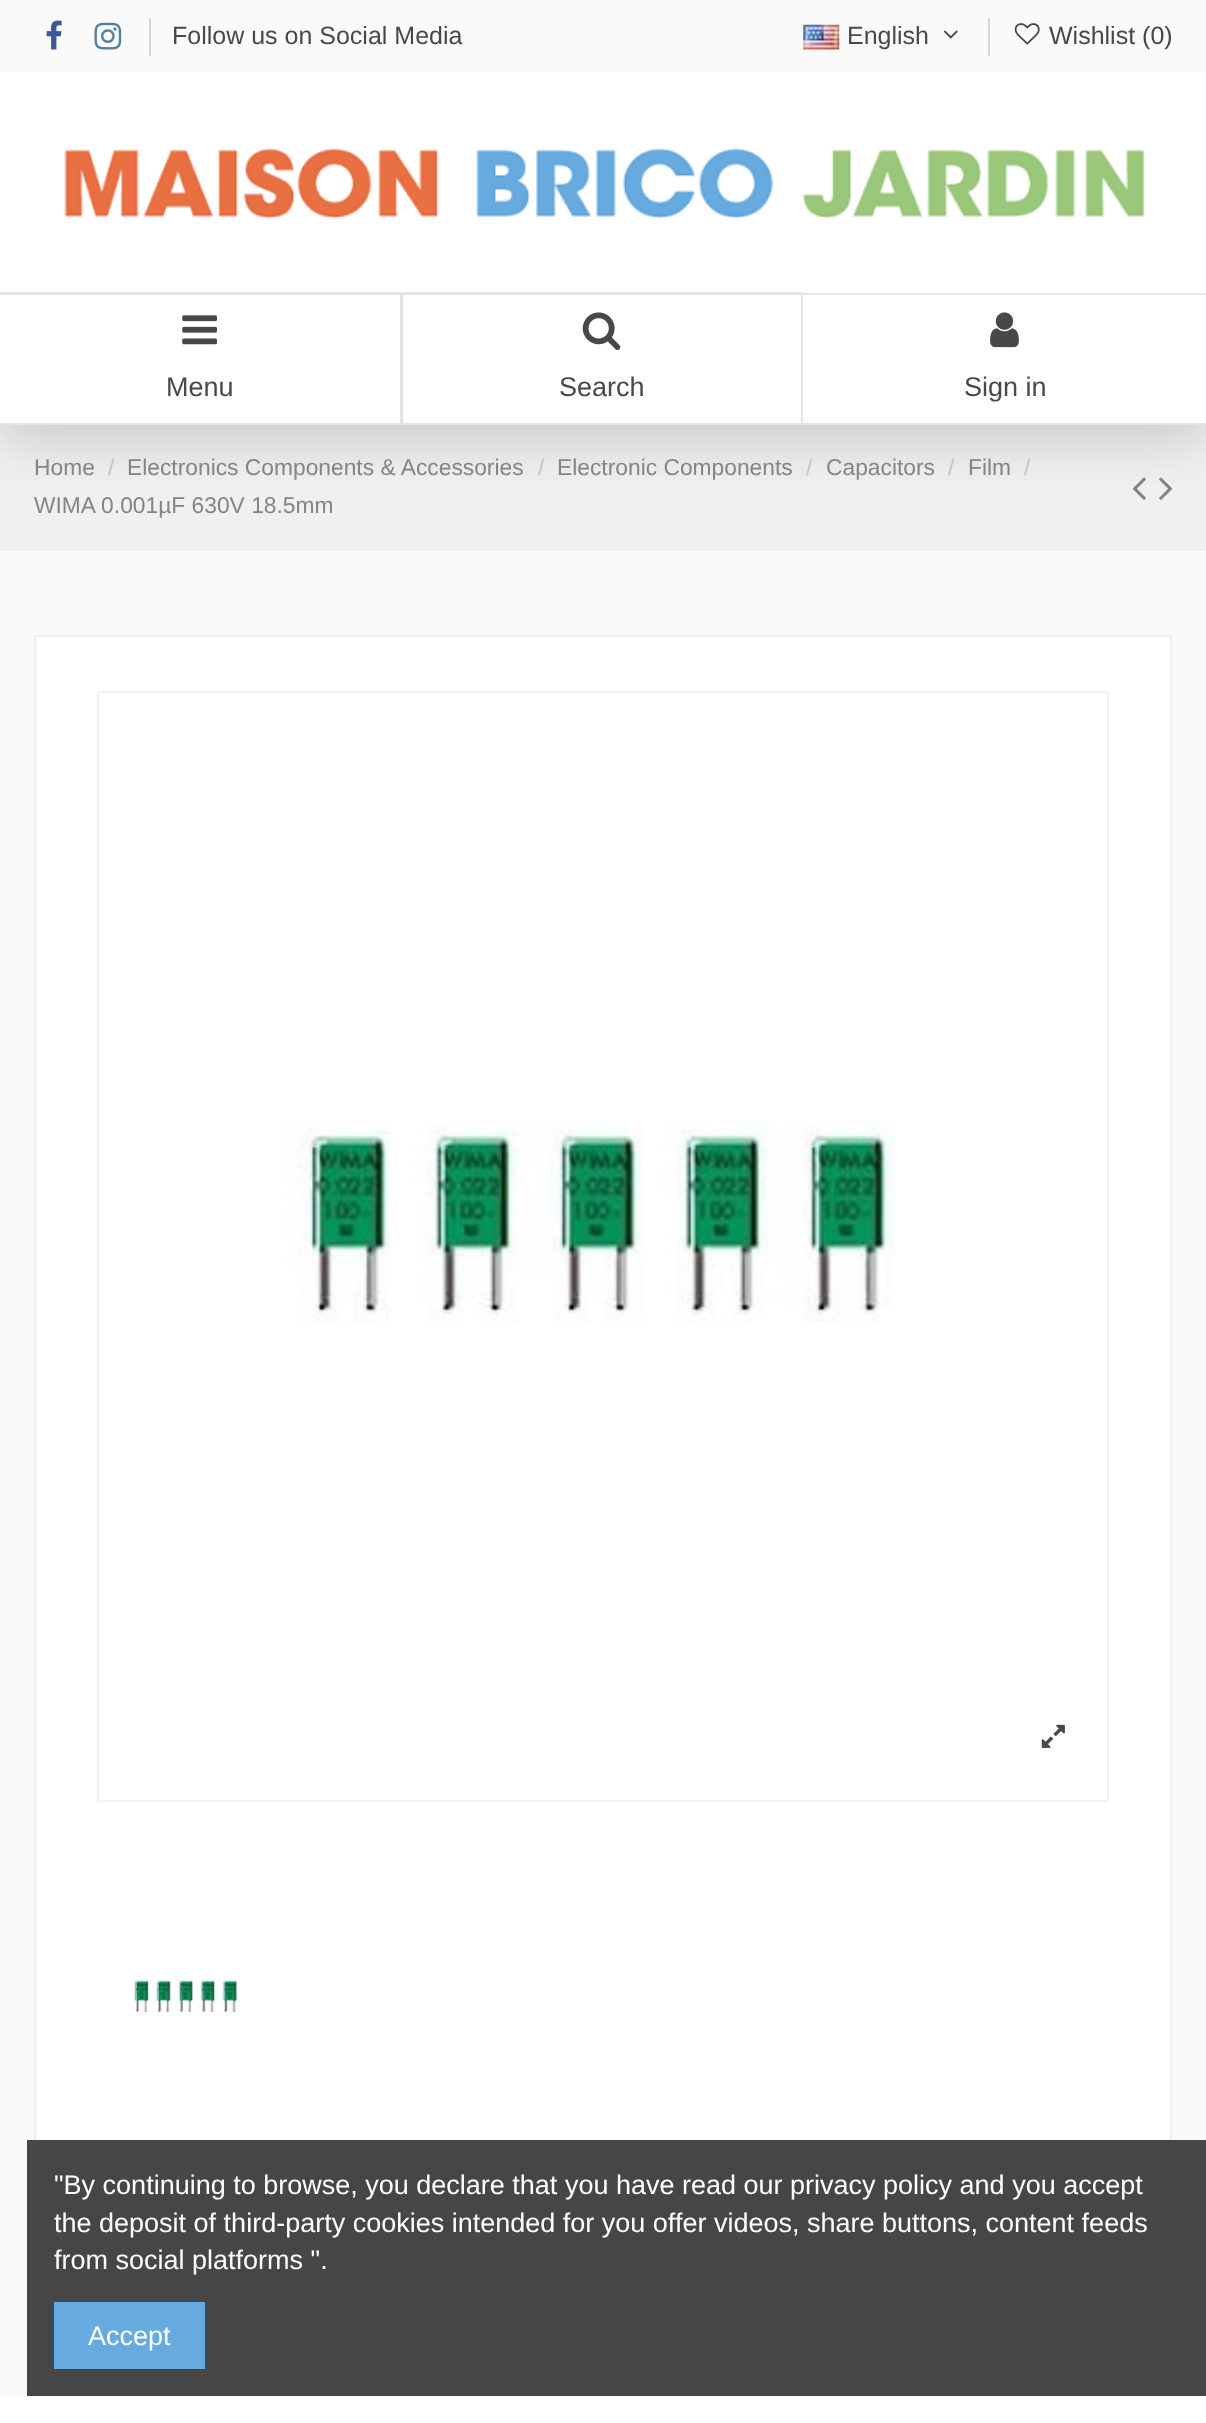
<!DOCTYPE html>
<meta charset="utf-8">
<style>body { margin: 0 } canvas { display: block }</style>
<canvas id="canvas" width="1206" height="2423"></canvas>
<img id="img1" src="img_10.png" hidden>
<img id="img2" src="img_11.png" hidden>
<img id="img3" src="img_01.png" hidden>
<img id="img4" src="img_02.png" hidden>
<img id="img5" src="img_03.png" hidden>
<img id="img6" src="img_04.png" hidden>
<img id="img7" src="img_05.png" hidden>
<img id="img8" src="img_06.png" hidden>
<img id="img9" src="img_07.png" hidden>
<img id="img10" src="img_08.png" hidden>
<img id="img11" src="img_09.png" hidden>
<img id="img12" src="img_12.png" hidden>
<img id="img13" src="img_13.png" hidden>
<img id="img14" src="img_14.png" hidden>
<script>
window.onload = function () {
	const canvas = document.getElementById("canvas");
	const ctx = canvas.getContext("2d");
	ctx.miterLimit = 4;
	ctx.fontKerning = "normal";
	function txt(s, x, y) {
		ctx.fillText(s, x, y);
	}
	function fill(x, y, w, h) {
		ctx.fillRect(x, y, w, h);
	}
	function img(id, x, y, w, h) {
		ctx.drawImage(document.getElementById(id), x, y, w, h);
	}

	ctx.fillStyle = "#FAFAFA";
	fill(0, 0, 1206, 2423);
	ctx.fillStyle = "#F0F0F0";
	fill(0, 425, 1206, 126);
	img("img1", 1132, 477, 14, 23);
	img("img2", 1159, 477, 14, 23);
	ctx.fillStyle = "rgba(0, 0, 0, 0.18)";
	ctx.filter = "blur(28px)";
	ctx.beginPath();
	ctx.rect(0, 11, 1206, 426);
	ctx.fill();
	ctx.filter = "none";
	ctx.fillStyle = "#FFFFFF";
	fill(0, 72, 1206, 353);
	ctx.fillStyle = "#FAFAFA";
	fill(0, 0, 1206, 72);
	img("img3", 46, 20, 16, 30);
	img("img4", 94, 22, 28, 28);
	ctx.fillStyle = "#D6D6D6";
	fill(149, 18, 2, 38);
	img("img5", 803, 24, 37, 26);
	img("img6", 943, 30, 15, 9);
	fill(988, 18, 2, 38);
	img("img7", 1014, 23, 26, 22);
	img("img8", 64, 147, 1082, 72);
	ctx.fillStyle = "#E5E5E5";
	ctx.beginPath();
	ctx.moveTo(0, 292);
	ctx.lineTo(403, 292);
	ctx.lineTo(400, 295);
	ctx.lineTo(0, 295);
	ctx.closePath();
	ctx.fill();
	ctx.fillStyle = "rgba(21, 21, 21, 0.11)";
	ctx.beginPath();
	ctx.moveTo(403, 292);
	ctx.lineTo(403, 425);
	ctx.lineTo(400, 423);
	ctx.lineTo(400, 295);
	ctx.closePath();
	ctx.fill();
	ctx.beginPath();
	ctx.moveTo(403, 425);
	ctx.lineTo(0, 425);
	ctx.lineTo(0, 423);
	ctx.lineTo(400, 423);
	ctx.closePath();
	ctx.fill();
	img("img9", 182, 315, 35, 30);
	ctx.fillStyle = "#E5E5E5";
	ctx.beginPath();
	ctx.moveTo(403, 292);
	ctx.lineTo(803, 292);
	ctx.lineTo(801, 295);
	ctx.lineTo(403, 295);
	ctx.closePath();
	ctx.fill();
	ctx.fillStyle = "rgba(21, 21, 21, 0.11)";
	ctx.beginPath();
	ctx.moveTo(803, 292);
	ctx.lineTo(803, 425);
	ctx.lineTo(801, 423);
	ctx.lineTo(801, 295);
	ctx.closePath();
	ctx.fill();
	ctx.beginPath();
	ctx.moveTo(803, 425);
	ctx.lineTo(403, 425);
	ctx.lineTo(403, 423);
	ctx.lineTo(801, 423);
	ctx.closePath();
	ctx.fill();
	img("img10", 582, 312, 39, 38);
	ctx.fillStyle = "#E5E5E5";
	fill(803, 293, 403, 2);
	fill(803, 423, 403, 2);
	img("img11", 990, 312, 29, 36);
	ctx.fillStyle = "#FFFFFF";
	fill(36, 637, 1134, 1503);
	ctx.strokeStyle = "#F0F0F0";
	ctx.lineWidth = 2;
	ctx.strokeRect(35, 636, 1136, 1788);
	ctx.strokeStyle = "#F2F2F2";
	ctx.strokeRect(98, 692, 1010, 1109);
	img("img12", 284, 1125, 612, 198);
	img("img13", 1041, 1724, 24, 24);
	img("img14", 133, 1979, 106, 34);
	fill(0, 2396, 1206, 27);
	ctx.fillStyle = "#464646";
	fill(27, 2140, 1179, 256);
	ctx.fillStyle = "#67AADF";
	fill(54, 2302, 151, 67);
	ctx.font = "25px Liberation Sans";
	ctx.fillStyle = "#484848";
	txt("Follow us on Social Media", 172, 44);
	txt("English", 847, 44);
	txt("Wishlist (0)", 1049, 44);
	ctx.font = "27px Liberation Sans";
	txt("Menu", 166, 396);
	txt("Search", 559, 396);
	txt("Sign in", 964, 396);
	ctx.font = "22.8px Liberation Sans";
	ctx.fillStyle = "#858585";
	txt("Home", 34, 475);
	ctx.fillStyle = "#C5C5C5";
	txt("/", 108, 475);
	ctx.fillStyle = "#858585";
	txt("Electronics Components & Accessories", 127, 475);
	ctx.fillStyle = "#C5C5C5";
	txt("/", 538, 475);
	ctx.fillStyle = "#858585";
	txt("Electronic Components", 557, 475);
	ctx.fillStyle = "#C5C5C5";
	txt("/", 806, 475);
	ctx.fillStyle = "#858585";
	txt("Capacitors", 826, 475);
	ctx.fillStyle = "#C5C5C5";
	txt("/", 948, 475);
	ctx.fillStyle = "#858585";
	txt("Film", 968, 475);
	ctx.fillStyle = "#C5C5C5";
	txt("/", 1024, 475);
	ctx.fillStyle = "#858585";
	txt("WIMA 0.001µF 630V 18.5mm", 34, 513);
	ctx.font = "27px Liberation Sans";
	ctx.fillStyle = "#FFFFFF";
	txt("\"By continuing to browse, you declare that you have read our privacy policy and you accept", 54, 2194);
	txt("the deposit of third-party cookies intended for you offer videos, share buttons, content feeds", 54, 2232);
	txt("from social platforms \".", 54, 2269);
	txt("Accept", 88, 2345);
};
</script>
